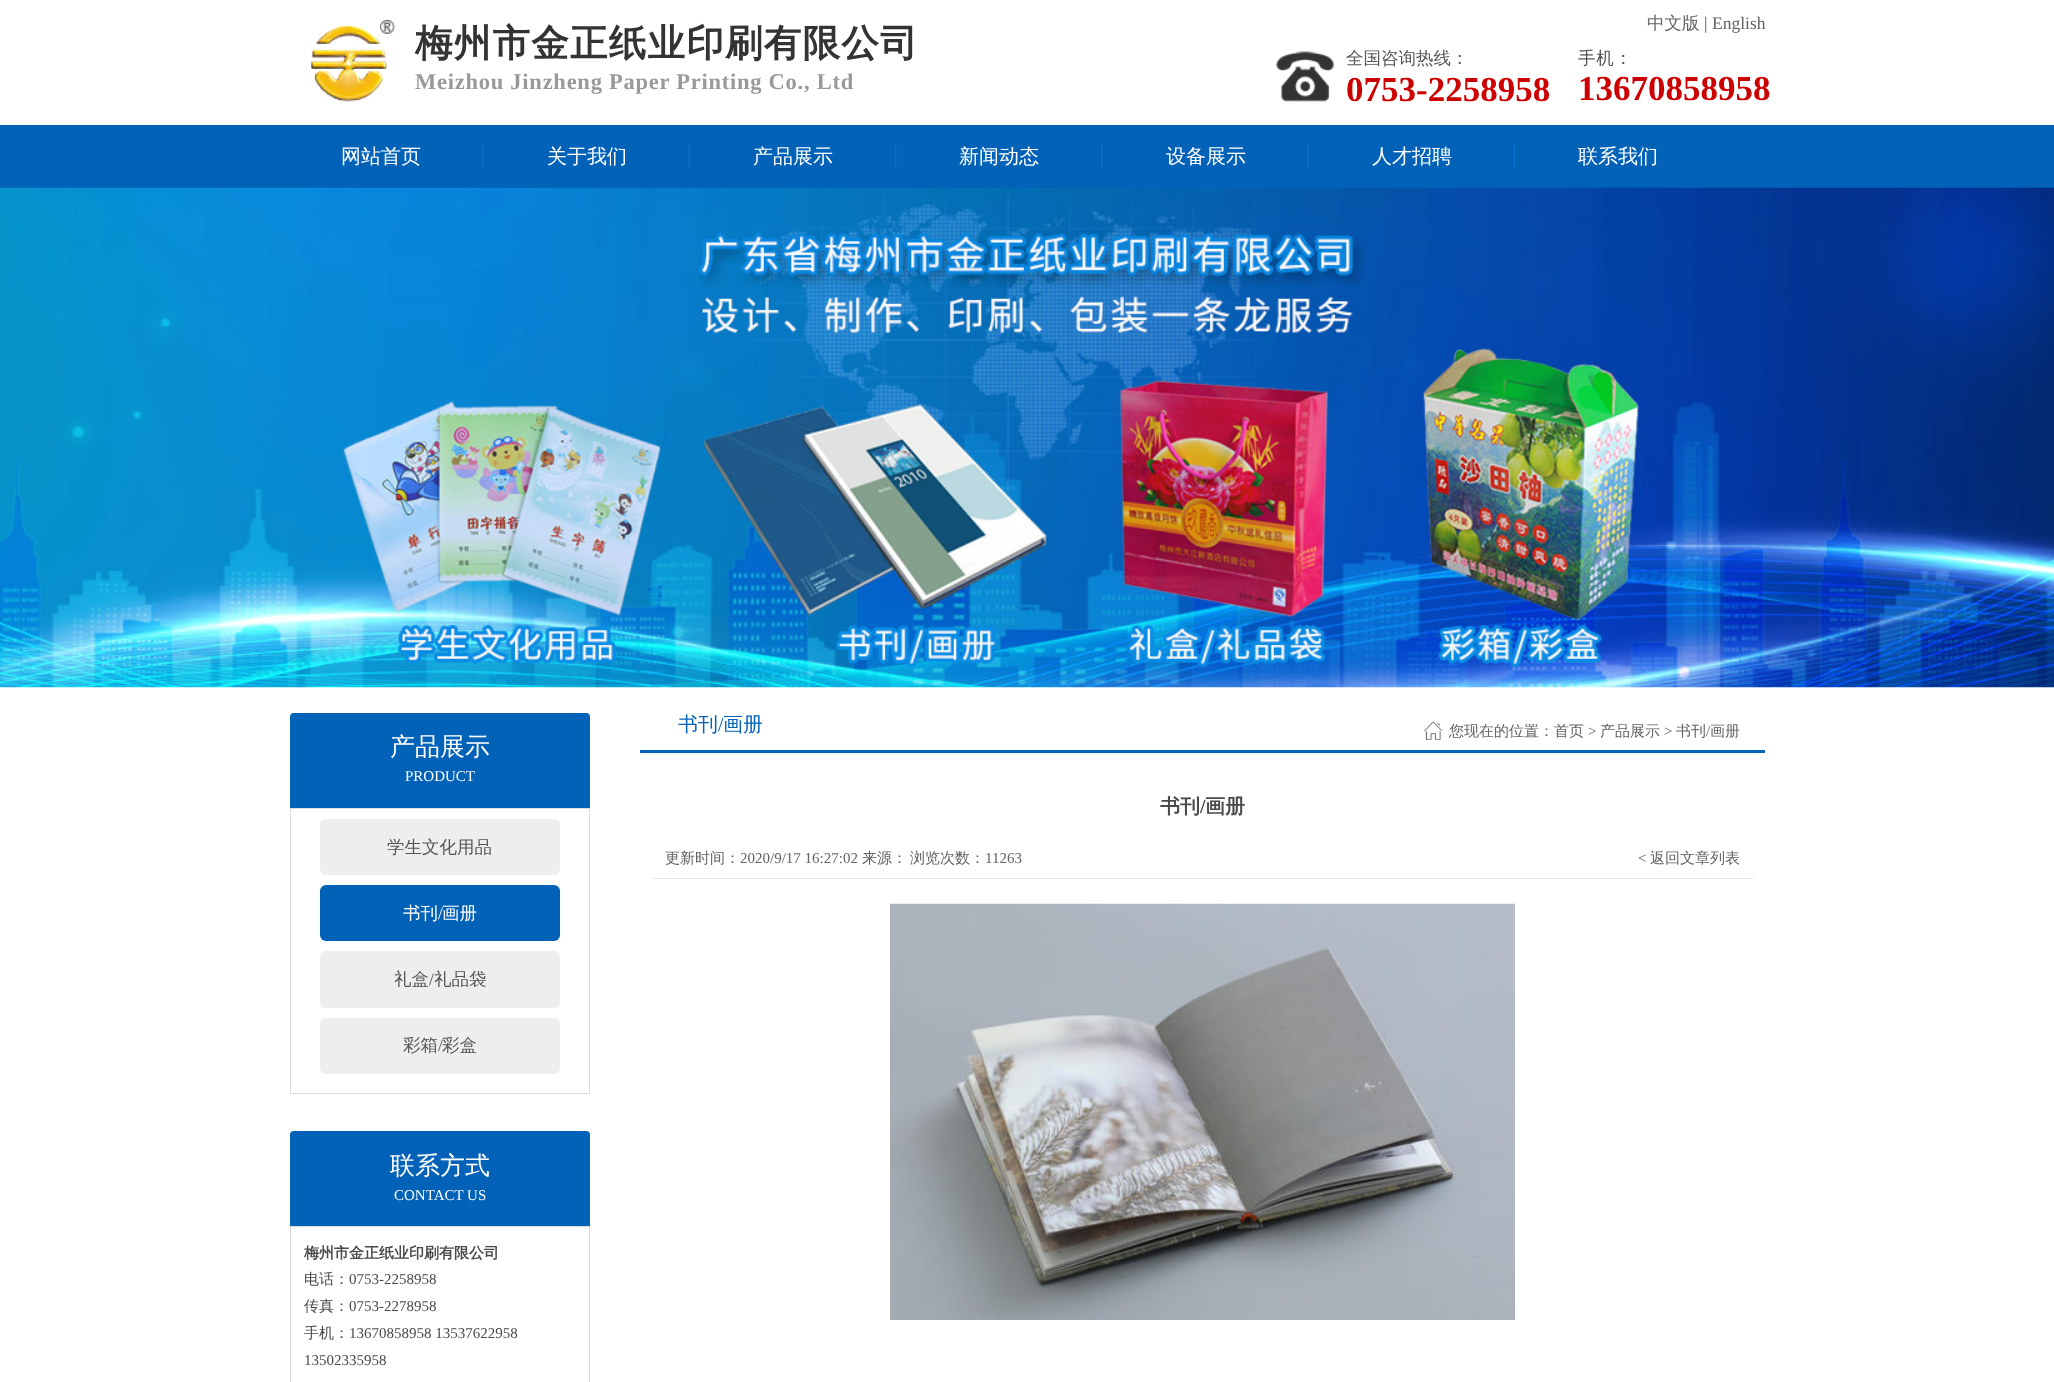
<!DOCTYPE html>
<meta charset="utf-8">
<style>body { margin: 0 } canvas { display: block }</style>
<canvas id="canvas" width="2054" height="1382"></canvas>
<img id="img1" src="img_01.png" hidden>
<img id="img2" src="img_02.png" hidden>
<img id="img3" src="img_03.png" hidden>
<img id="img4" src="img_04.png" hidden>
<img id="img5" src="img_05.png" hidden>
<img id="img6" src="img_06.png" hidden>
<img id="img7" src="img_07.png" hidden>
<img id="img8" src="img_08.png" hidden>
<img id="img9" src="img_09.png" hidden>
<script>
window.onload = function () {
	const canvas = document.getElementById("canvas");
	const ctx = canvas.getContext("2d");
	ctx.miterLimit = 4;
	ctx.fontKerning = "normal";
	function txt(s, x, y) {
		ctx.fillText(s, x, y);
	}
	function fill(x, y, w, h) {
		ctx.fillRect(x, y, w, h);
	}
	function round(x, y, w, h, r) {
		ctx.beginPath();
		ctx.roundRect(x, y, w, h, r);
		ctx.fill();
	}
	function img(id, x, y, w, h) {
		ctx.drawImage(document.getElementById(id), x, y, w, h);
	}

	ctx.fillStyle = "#FFFFFF";
	fill(0, 0, 2054, 1382);
	img("img1", 311, 19, 85, 83);
	img("img2", 1276, 51, 58, 51);
	ctx.fillStyle = "#0262B8";
	fill(0, 125, 2054, 63);
	img("img3", 482, 143, 2, 26);
	img("img4", 688, 143, 2, 26);
	img("img5", 895, 143, 2, 26);
	img("img6", 1101, 143, 2, 26);
	img("img3", 1307, 143, 2, 26);
	img("img4", 1513, 143, 2, 26);
	img("img7", 0, 187, 2054, 501);
	ctx.beginPath();
	ctx.roundRect(290, 713, 300, 95, [4, 4, 0, 0]);
	ctx.fill();
	ctx.strokeStyle = "#DDDDDD";
	ctx.strokeRect(290.5, 808.5, 299, 285);
	ctx.fillStyle = "#EEEEEE";
	round(320, 819, 240, 56, 6);
	ctx.fillStyle = "#0262B8";
	round(320, 885, 240, 56, 6);
	ctx.fillStyle = "#EEEEEE";
	round(320, 951, 240, 57, 6);
	round(320, 1018, 240, 56, 6);
	ctx.fillStyle = "#0262B8";
	ctx.beginPath();
	ctx.roundRect(290, 1131, 300, 95, [4, 4, 0, 0]);
	ctx.fill();
	ctx.strokeRect(290.5, 1226.5, 299, 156);
	fill(640, 750, 1125, 3);
	img("img8", 1423, 721, 20, 19);
	ctx.fillStyle = "#E4E4E4";
	fill(653, 878, 1100, 1);
	img("img9", 890, 903, 625, 417);
	ctx.letterSpacing = "1.25px";
	ctx.font = "bold 37.5px WenQuanYi Zen Hei";
	ctx.fillStyle = "#333333";
	txt("梅州市金正纸业印刷有限公司", 415, 56);
	ctx.letterSpacing = "0px";
	ctx.font = "500 17.5px WenQuanYi Zen Hei";
	ctx.fillStyle = "#626262";
	txt("中文版", 1647, 29);
	ctx.font = "17.5px Liberation Serif";
	ctx.fillStyle = "#555555";
	txt("|", 1704, 29);
	ctx.fillStyle = "#626262";
	txt("English", 1712, 29);
	ctx.letterSpacing = "0.75px";
	ctx.font = "bold 22.5px Liberation Serif";
	ctx.fillStyle = "#999999";
	txt("Meizhou Jinzheng Paper Printing Co., Ltd", 415, 89);
	ctx.letterSpacing = "0px";
	ctx.font = "500 17.5px WenQuanYi Zen Hei";
	ctx.fillStyle = "#555555";
	txt("全国咨询热线：", 1346, 64);
	ctx.letterSpacing = "0.75px";
	txt("手机：", 1578, 64);
	ctx.letterSpacing = "0px";
	ctx.font = "bold 35px Liberation Serif";
	ctx.fillStyle = "#CC0000";
	txt("0753-2258958", 1346, 101);
	txt("13670858958", 1578, 100);
	ctx.font = "500 20px WenQuanYi Zen Hei";
	ctx.fillStyle = "#FFFFFF";
	txt("网站首页", 341, 163);
	txt("关于我们", 547, 163);
	txt("产品展示", 753, 163);
	txt("新闻动态", 959, 163);
	txt("设备展示", 1166, 163);
	txt("人才招聘", 1372, 163);
	txt("联系我们", 1578, 163);
	ctx.font = "500 25px WenQuanYi Zen Hei";
	txt("产品展示", 390, 755);
	ctx.font = "15px Liberation Serif";
	txt("PRODUCT", 405, 781);
	ctx.font = "500 17.5px WenQuanYi Zen Hei";
	ctx.fillStyle = "#555555";
	txt("学生文化用品", 387, 853);
	ctx.fillStyle = "#FFFFFF";
	txt("书刊", 403, 919);
	ctx.font = "17.5px Liberation Serif";
	txt("/", 438, 919);
	ctx.font = "500 17.5px WenQuanYi Zen Hei";
	txt("画册", 442, 919);
	ctx.fillStyle = "#555555";
	txt("礼盒", 394, 985);
	ctx.font = "17.5px Liberation Serif";
	txt("/", 429, 985);
	ctx.font = "500 17.5px WenQuanYi Zen Hei";
	txt("礼品袋", 434, 985);
	txt("彩箱", 403, 1051);
	ctx.font = "17.5px Liberation Serif";
	txt("/", 438, 1051);
	ctx.font = "500 17.5px WenQuanYi Zen Hei";
	txt("彩盒", 442, 1051);
	ctx.font = "500 25px WenQuanYi Zen Hei";
	ctx.fillStyle = "#FFFFFF";
	txt("联系方式", 390, 1174);
	ctx.font = "15px Liberation Serif";
	txt("CONTACT US", 394, 1200);
	ctx.font = "bold 15px WenQuanYi Zen Hei";
	ctx.fillStyle = "#4B4A4A";
	txt("梅州市金正纸业印刷有限公司", 304, 1258);
	ctx.font = "500 15px WenQuanYi Zen Hei";
	txt("电话：", 304, 1284);
	ctx.font = "15px Liberation Serif";
	txt("0753-2258958", 349, 1284);
	ctx.font = "500 15px WenQuanYi Zen Hei";
	txt("传真：", 304, 1311);
	ctx.font = "15px Liberation Serif";
	txt("0753-2278958", 349, 1311);
	ctx.font = "500 15px WenQuanYi Zen Hei";
	txt("手机：", 304, 1338);
	ctx.font = "15px Liberation Serif";
	txt("13670858958 13537622958", 349, 1338);
	txt("13502335958", 304, 1365);
	ctx.font = "500 20px WenQuanYi Zen Hei";
	ctx.fillStyle = "#0262B8";
	txt("书刊", 678, 731);
	ctx.font = "20px Liberation Serif";
	txt("/", 718, 731);
	ctx.font = "500 20px WenQuanYi Zen Hei";
	txt("画册", 723, 731);
	ctx.font = "500 15px WenQuanYi Zen Hei";
	ctx.fillStyle = "#626262";
	txt("您现在的位置：首页", 1449, 736);
	ctx.font = "15px Liberation Serif";
	txt(">", 1588, 736);
	ctx.font = "500 15px WenQuanYi Zen Hei";
	txt("产品展示", 1600, 736);
	ctx.font = "15px Liberation Serif";
	txt(">", 1664, 736);
	ctx.font = "500 15px WenQuanYi Zen Hei";
	txt("书刊", 1676, 736);
	ctx.font = "15px Liberation Serif";
	txt("/", 1706, 736);
	ctx.font = "500 15px WenQuanYi Zen Hei";
	txt("画册", 1710, 736);
	ctx.font = "bold 20px WenQuanYi Zen Hei";
	ctx.fillStyle = "#4B4A4A";
	txt("书刊", 1160, 813);
	ctx.font = "bold 20px Liberation Serif";
	txt("/", 1200, 813);
	ctx.font = "bold 20px WenQuanYi Zen Hei";
	txt("画册", 1205, 813);
	ctx.font = "500 15px WenQuanYi Zen Hei";
	ctx.fillStyle = "#626262";
	txt("更新时间：", 665, 863);
	ctx.font = "15px Liberation Serif";
	txt("2020/9/17 16:27:02", 740, 863);
	ctx.font = "500 15px WenQuanYi Zen Hei";
	txt("来源：", 862, 863);
	txt("浏览次数：", 910, 863);
	ctx.font = "15px Liberation Serif";
	txt("11263", 985, 863);
	txt("<", 1638, 863);
	ctx.font = "500 15px WenQuanYi Zen Hei";
	txt("返回文章列表", 1650, 863);
};
</script>
